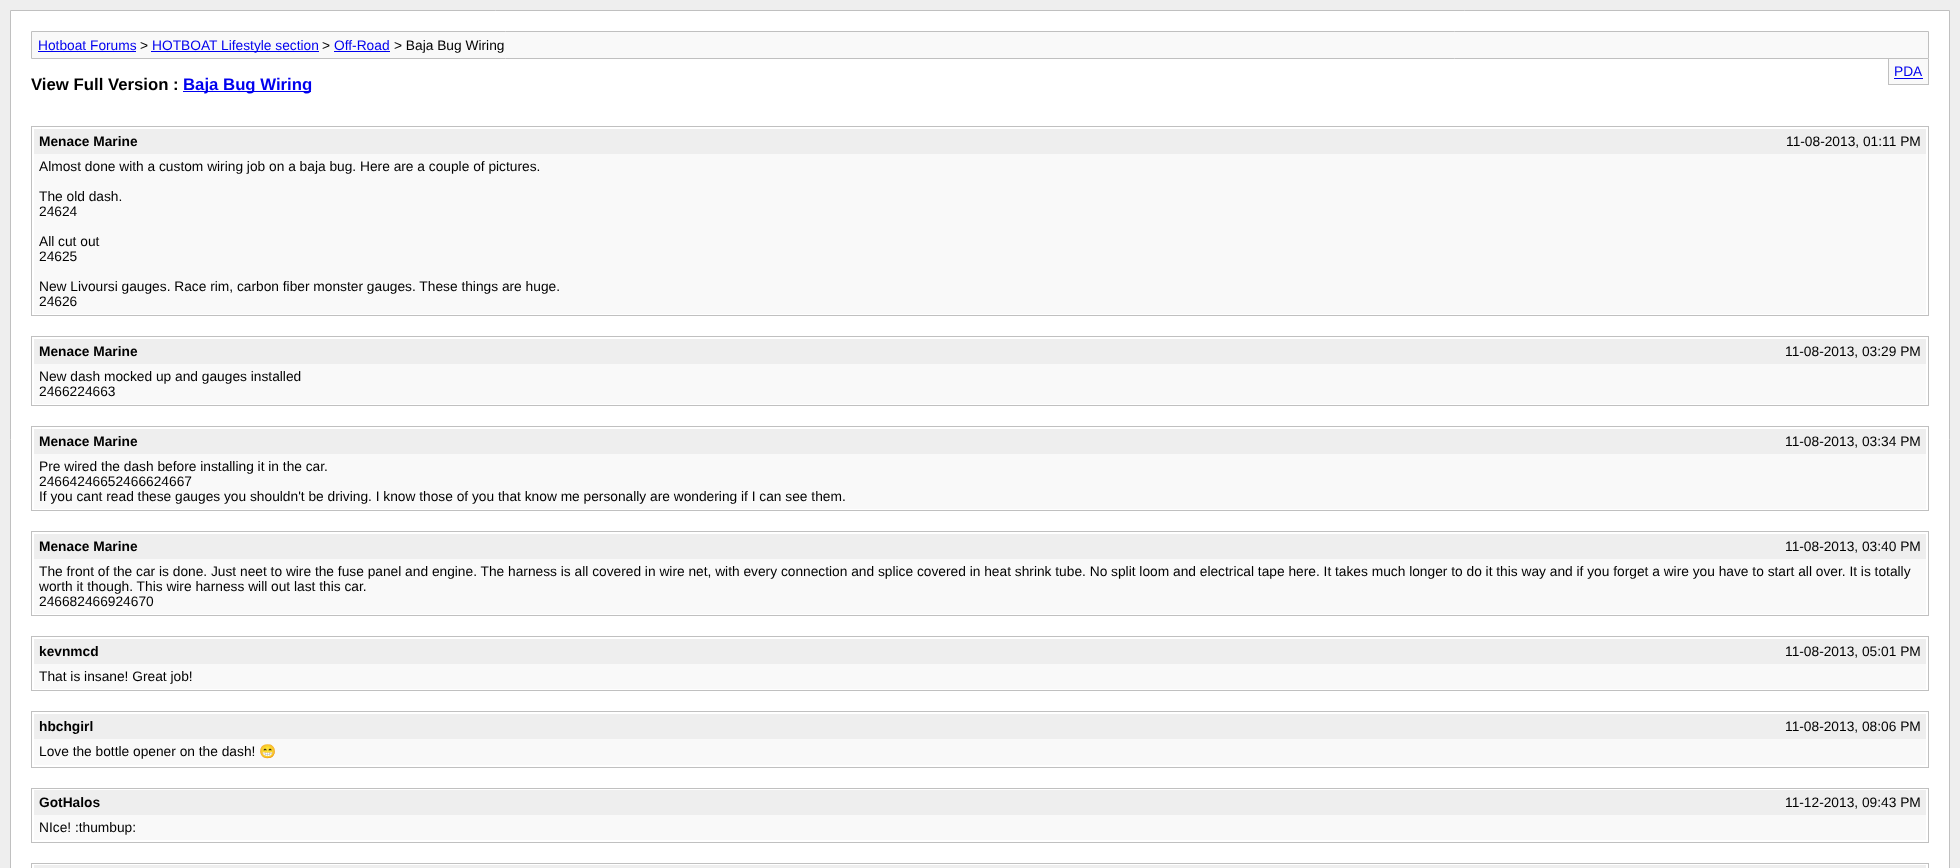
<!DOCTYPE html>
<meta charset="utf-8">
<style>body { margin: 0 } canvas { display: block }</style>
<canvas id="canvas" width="1960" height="868"></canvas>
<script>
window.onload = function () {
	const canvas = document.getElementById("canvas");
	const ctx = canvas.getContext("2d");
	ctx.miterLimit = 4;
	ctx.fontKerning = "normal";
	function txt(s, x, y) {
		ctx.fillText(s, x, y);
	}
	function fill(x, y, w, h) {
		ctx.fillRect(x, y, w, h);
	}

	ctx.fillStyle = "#EEEEEE";
	fill(0, 0, 1960, 868);
	ctx.fillStyle = "#FFFFFF";
	ctx.beginPath();
	ctx.rect(10.5, 10.5, 1939, 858);
	ctx.fill();
	ctx.strokeStyle = "#C0C0C0";
	ctx.stroke();
	ctx.fillStyle = "#F9F9F9";
	ctx.beginPath();
	ctx.rect(31.5, 31.5, 1897, 27);
	ctx.fill();
	ctx.stroke();
	ctx.fillStyle = "#0000EE";
	fill(38, 51, 98, 1);
	fill(151, 51, 168, 1);
	fill(334, 51, 56, 1);
	ctx.fillStyle = "#F9F9F9";
	fill(1889, 59, 39, 25);
	ctx.fillStyle = "#C0C0C0";
	fill(1928, 59, 1, 26);
	fill(1888, 84, 41, 1);
	fill(1888, 59, 1, 26);
	ctx.fillStyle = "#0000EE";
	fill(1894, 78, 29, 1);
	fill(183, 91, 128, 1);
	ctx.strokeRect(31.5, 126.5, 1897, 189);
	ctx.fillStyle = "#EEEEEE";
	fill(34, 129, 1892, 25);
	ctx.fillStyle = "#F9F9F9";
	fill(34, 154, 1892, 160);
	ctx.strokeRect(31.5, 336.5, 1897, 69);
	ctx.fillStyle = "#EEEEEE";
	fill(34, 339, 1892, 25);
	ctx.fillStyle = "#F9F9F9";
	fill(34, 364, 1892, 40);
	ctx.strokeRect(31.5, 426.5, 1897, 84);
	ctx.fillStyle = "#EEEEEE";
	fill(34, 429, 1892, 25);
	ctx.fillStyle = "#F9F9F9";
	fill(34, 454, 1892, 55);
	ctx.strokeRect(31.5, 531.5, 1897, 84);
	ctx.fillStyle = "#EEEEEE";
	fill(34, 534, 1892, 25);
	ctx.fillStyle = "#F9F9F9";
	fill(34, 559, 1892, 55);
	ctx.strokeRect(31.5, 636.5, 1897, 54);
	ctx.fillStyle = "#EEEEEE";
	fill(34, 639, 1892, 25);
	ctx.fillStyle = "#F9F9F9";
	fill(34, 664, 1892, 25);
	ctx.strokeRect(31.5, 711.5, 1897, 56);
	ctx.fillStyle = "#EEEEEE";
	fill(34, 714, 1892, 25);
	ctx.fillStyle = "#F9F9F9";
	fill(34, 739, 1892, 26);
	ctx.strokeRect(31.5, 788.5, 1897, 54);
	ctx.fillStyle = "#EEEEEE";
	fill(34, 790, 1892, 25);
	ctx.fillStyle = "#F9F9F9";
	fill(34, 815, 1892, 25);
	ctx.strokeRect(31.5, 863.5, 1897, 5);
	ctx.fillStyle = "#EEEEEE";
	fill(34, 865, 1892, 3);
	ctx.font = "13.75px Liberation Sans";
	ctx.fillStyle = "#0000EE";
	txt("Hotboat Forums", 38, 50);
	ctx.fillStyle = "#000000";
	txt(">", 140, 50);
	ctx.fillStyle = "#0000EE";
	txt("HOTBOAT Lifestyle section", 152, 50);
	ctx.fillStyle = "#000000";
	txt(">", 322, 50);
	ctx.fillStyle = "#0000EE";
	txt("Off-Road", 334, 50);
	ctx.fillStyle = "#000000";
	txt("> Baja Bug Wiring", 394, 50);
	ctx.fillStyle = "#0000EE";
	txt("PDA", 1894, 76);
	ctx.font = "bold 16.75px Liberation Sans";
	ctx.fillStyle = "#000000";
	txt("View Full Version :", 31, 90);
	ctx.fillStyle = "#0000EE";
	txt("Baja Bug Wiring", 183, 90);
	ctx.font = "bold 13.75px Liberation Sans";
	ctx.fillStyle = "#000000";
	txt("Menace Marine", 39, 146);
	ctx.font = "13.75px Liberation Sans";
	txt("11-08-2013, 01:11 PM", 1786, 146);
	txt("Almost done with a custom wiring job on a baja bug. Here are a couple of pictures.", 39, 171);
	txt("The old dash.", 39, 201);
	txt("24624", 39, 216);
	txt("All cut out", 39, 246);
	txt("24625", 39, 261);
	txt("New Livoursi gauges. Race rim, carbon fiber monster gauges. These things are huge.", 39, 291);
	txt("24626", 39, 306);
	ctx.font = "bold 13.75px Liberation Sans";
	txt("Menace Marine", 39, 356);
	ctx.font = "13.75px Liberation Sans";
	txt("11-08-2013, 03:29 PM", 1785, 356);
	txt("New dash mocked up and gauges installed", 39, 381);
	txt("2466224663", 39, 396);
	ctx.font = "bold 13.75px Liberation Sans";
	txt("Menace Marine", 39, 446);
	ctx.font = "13.75px Liberation Sans";
	txt("11-08-2013, 03:34 PM", 1785, 446);
	txt("Pre wired the dash before installing it in the car.", 39, 471);
	txt("24664246652466624667", 39, 486);
	txt("If you cant read these gauges you shouldn't be driving. I know those of you that know me personally are wondering if I can see them.", 39, 501);
	ctx.font = "bold 13.75px Liberation Sans";
	txt("Menace Marine", 39, 551);
	ctx.font = "13.75px Liberation Sans";
	txt("11-08-2013, 03:40 PM", 1785, 551);
	txt("The front of the car is done. Just neet to wire the fuse panel and engine. The harness is all covered in wire net, with every connection and splice covered in heat shrink tube. No split loom and electrical tape here. It takes much longer to do it this way and if you forget a wire you have to start all over. It is totally", 39, 576);
	txt("worth it though. This wire harness will out last this car.", 39, 591);
	txt("246682466924670", 39, 606);
	ctx.font = "bold 13.75px Liberation Sans";
	txt("kevnmcd", 39, 656);
	ctx.font = "13.75px Liberation Sans";
	txt("11-08-2013, 05:01 PM", 1785, 656);
	txt("That is insane! Great job!", 39, 681);
	ctx.font = "bold 13.75px Liberation Sans";
	txt("hbchgirl", 39, 731);
	ctx.font = "13.75px Liberation Sans";
	txt("11-08-2013, 08:06 PM", 1785, 731);
	txt("Love the bottle opener on the dash!", 39, 756);
	ctx.font = "13.75px Noto Color Emoji";
	txt("😁", 259, 756);
	ctx.font = "bold 13.75px Liberation Sans";
	txt("GotHalos", 39, 807);
	ctx.font = "13.75px Liberation Sans";
	txt("11-12-2013, 09:43 PM", 1785, 807);
	txt("NIce! :thumbup:", 39, 832);
};
</script>
